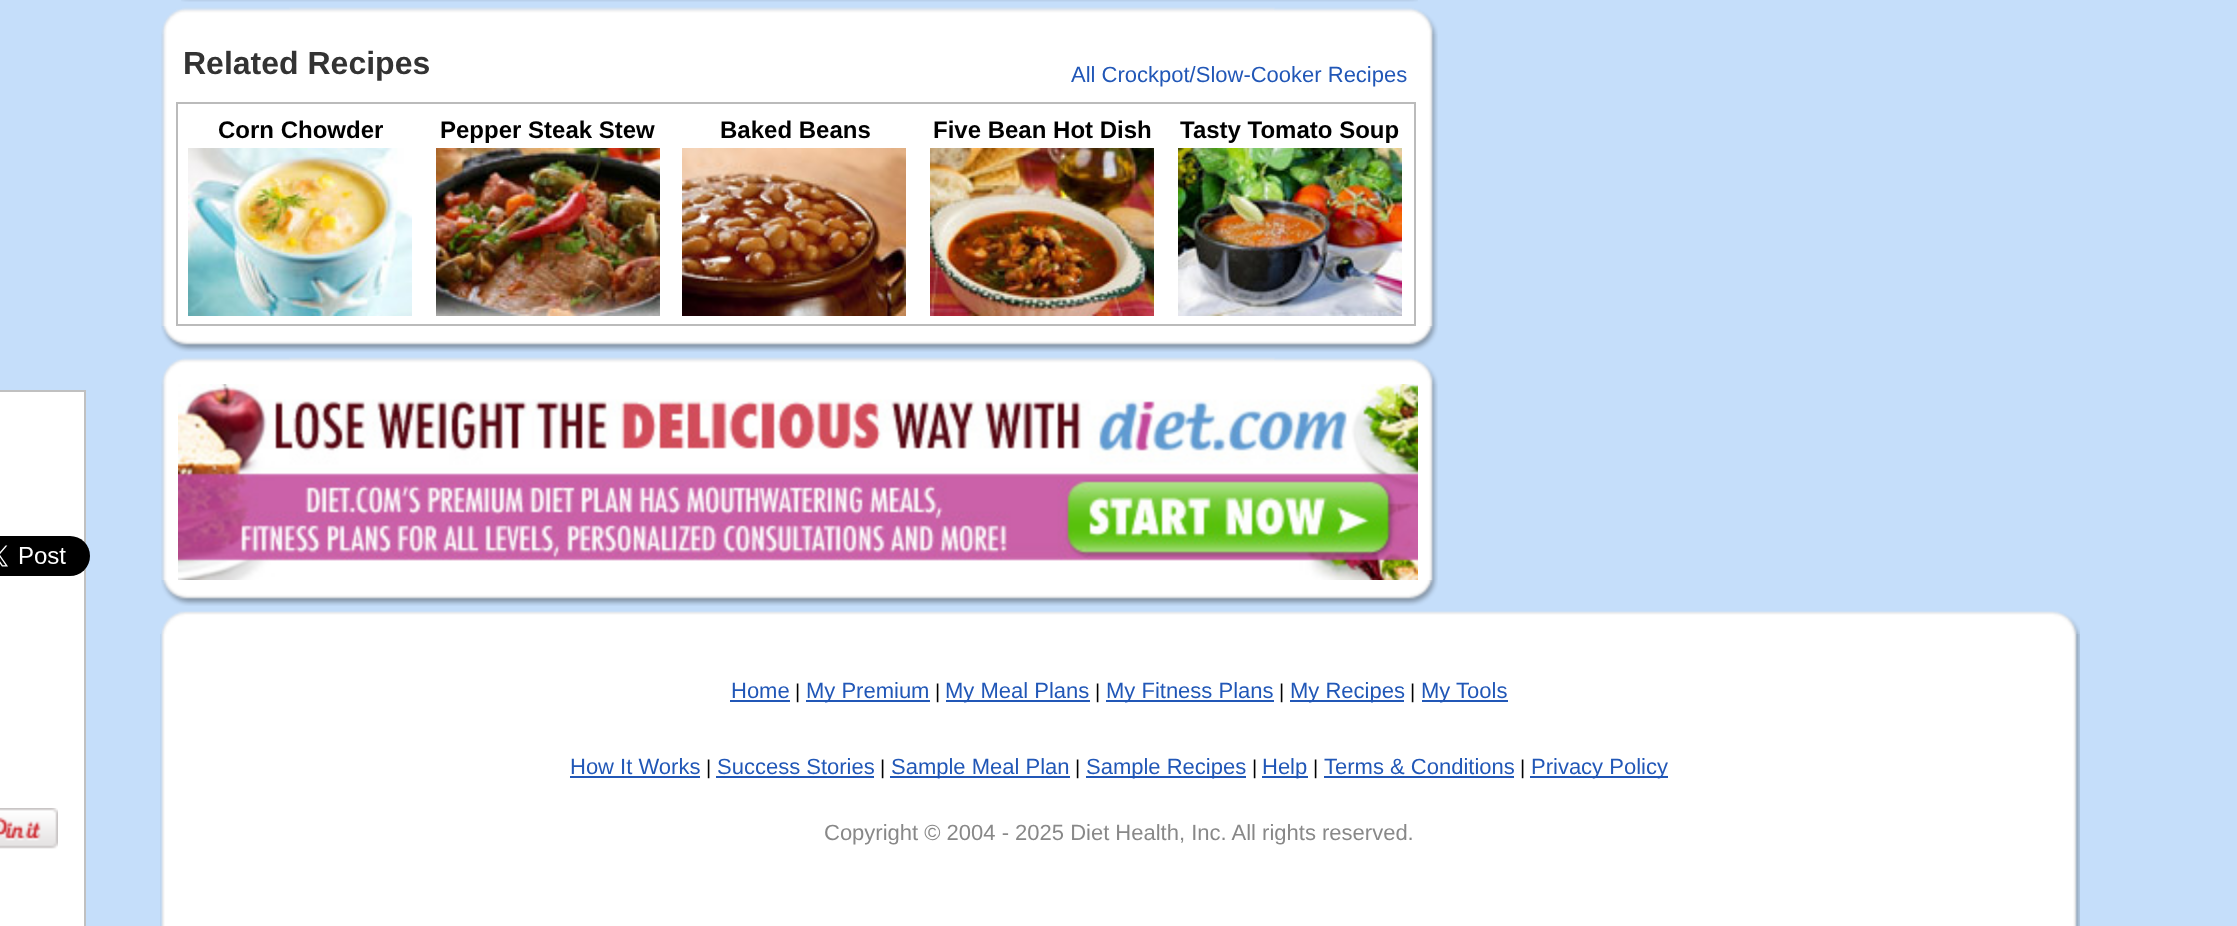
<!DOCTYPE html>
<meta charset="utf-8">
<style>body { margin: 0 } canvas { display: block }</style>
<canvas id="canvas" width="2237" height="926"></canvas>
<img id="img1" src="img_01.png" hidden>
<img id="img2" src="img_02.png" hidden>
<img id="img3" src="img_03.png" hidden>
<img id="img4" src="img_04.png" hidden>
<img id="img5" src="img_05.png" hidden>
<img id="img6" src="img_06.png" hidden>
<img id="img7" src="img_07.png" hidden>
<img id="img8" src="img_08.png" hidden>
<img id="img9" src="img_09.png" hidden>
<img id="img10" src="img_10.png" hidden>
<img id="img11" src="img_11.png" hidden>
<img id="img12" src="img_12.png" hidden>
<img id="img13" src="img_13.png" hidden>
<img id="img14" src="img_14.png" hidden>
<img id="img15" src="img_15.png" hidden>
<script>
window.onload = function () {
	const canvas = document.getElementById("canvas");
	const ctx = canvas.getContext("2d");
	ctx.miterLimit = 4;
	ctx.fontKerning = "normal";
	function txt(s, x, y) {
		ctx.fillText(s, x, y);
	}
	function fill(x, y, w, h) {
		ctx.fillRect(x, y, w, h);
	}
	function img(id, x, y, w, h) {
		ctx.drawImage(document.getElementById(id), x, y, w, h);
	}

	ctx.fillStyle = "#C5DEFA";
	fill(0, 0, 2237, 926);
	img("img1", 181, 0, 1237, 2);
	img("img2", 161, 7, 1277, 27);
	img("img3", 161, 34, 1277, 292);
	ctx.strokeStyle = "#BBBBBB";
	ctx.lineWidth = 2;
	ctx.strokeRect(177, 103, 1238, 222);
	img("img4", 188, 148, 224, 168);
	img("img5", 436, 148, 224, 168);
	img("img6", 682, 148, 224, 168);
	img("img7", 930, 148, 224, 168);
	img("img8", 1178, 148, 224, 168);
	img("img9", 161, 326, 1277, 26);
	img("img2", 161, 357, 1277, 27);
	img("img10", 161, 384, 1277, 196);
	img("img11", 178, 384, 1240, 196);
	img("img9", 161, 580, 1277, 26);
	img("img12", 161, 611, 1919, 23);
	img("img13", 160, 634, 1920, 292);
	ctx.fillStyle = "#FFFFFF";
	ctx.beginPath();
	ctx.rect(-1, 391, 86, 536);
	ctx.fill();
	ctx.strokeStyle = "#C0C0C0";
	ctx.stroke();
	img("img14", 0, 536, 90, 40);
	img("img15", 0, 808, 58, 41);
	ctx.fillStyle = "#2157B7";
	fill(730, 700, 60, 2);
	fill(806, 700, 124, 2);
	fill(946, 700, 144, 2);
	fill(1106, 700, 168, 2);
	fill(1290, 700, 114, 2);
	fill(1422, 700, 86, 2);
	fill(570, 776, 130, 2);
	fill(716, 776, 158, 2);
	fill(890, 776, 180, 2);
	fill(1086, 776, 160, 2);
	fill(1262, 776, 46, 2);
	fill(1324, 776, 190, 2);
	fill(1530, 776, 138, 2);
	ctx.font = "bold 32px Liberation Sans";
	ctx.fillStyle = "#333333";
	txt("Related Recipes", 183, 74);
	ctx.font = "22px Liberation Sans";
	ctx.fillStyle = "#2157B7";
	txt("All Crockpot/Slow-Cooker Recipes", 1071, 82);
	ctx.font = "bold 24px Liberation Sans";
	ctx.fillStyle = "#000000";
	txt("Corn Chowder", 218, 138);
	txt("Pepper Steak Stew", 440, 138);
	txt("Baked Beans", 720, 138);
	txt("Five Bean Hot Dish", 933, 138);
	txt("Tasty Tomato Soup", 1180, 138);
	ctx.font = "22px Liberation Sans";
	ctx.fillStyle = "#2157B7";
	txt("Home", 731, 698);
	ctx.font = "20px Liberation Sans";
	ctx.fillStyle = "#000000";
	txt("|", 795, 698);
	ctx.font = "22px Liberation Sans";
	ctx.fillStyle = "#2157B7";
	txt("My Premium", 806, 698);
	ctx.font = "20px Liberation Sans";
	ctx.fillStyle = "#000000";
	txt("|", 935, 698);
	ctx.font = "22px Liberation Sans";
	ctx.fillStyle = "#2157B7";
	txt("My Meal Plans", 945, 698);
	ctx.font = "20px Liberation Sans";
	ctx.fillStyle = "#000000";
	txt("|", 1095, 698);
	ctx.font = "22px Liberation Sans";
	ctx.fillStyle = "#2157B7";
	txt("My Fitness Plans", 1106, 698);
	ctx.font = "20px Liberation Sans";
	ctx.fillStyle = "#000000";
	txt("|", 1279, 698);
	ctx.font = "22px Liberation Sans";
	ctx.fillStyle = "#2157B7";
	txt("My Recipes", 1290, 698);
	ctx.font = "20px Liberation Sans";
	ctx.fillStyle = "#000000";
	txt("|", 1410, 698);
	ctx.font = "22px Liberation Sans";
	ctx.fillStyle = "#2157B7";
	txt("My Tools", 1421, 698);
	txt("How It Works", 570, 774);
	ctx.font = "20px Liberation Sans";
	ctx.fillStyle = "#000000";
	txt("|", 706, 774);
	ctx.font = "22px Liberation Sans";
	ctx.fillStyle = "#2157B7";
	txt("Success Stories", 717, 774);
	ctx.font = "20px Liberation Sans";
	ctx.fillStyle = "#000000";
	txt("|", 880, 774);
	ctx.font = "22px Liberation Sans";
	ctx.fillStyle = "#2157B7";
	txt("Sample Meal Plan", 891, 774);
	ctx.font = "20px Liberation Sans";
	ctx.fillStyle = "#000000";
	txt("|", 1075, 774);
	ctx.font = "22px Liberation Sans";
	ctx.fillStyle = "#2157B7";
	txt("Sample Recipes", 1086, 774);
	ctx.font = "20px Liberation Sans";
	ctx.fillStyle = "#000000";
	txt("|", 1252, 774);
	ctx.font = "22px Liberation Sans";
	ctx.fillStyle = "#2157B7";
	txt("Help", 1262, 774);
	ctx.font = "20px Liberation Sans";
	ctx.fillStyle = "#000000";
	txt("|", 1313, 774);
	ctx.font = "22px Liberation Sans";
	ctx.fillStyle = "#2157B7";
	txt("Terms & Conditions", 1324, 774);
	ctx.font = "20px Liberation Sans";
	ctx.fillStyle = "#000000";
	txt("|", 1520, 774);
	ctx.font = "22px Liberation Sans";
	ctx.fillStyle = "#2157B7";
	txt("Privacy Policy", 1531, 774);
	ctx.fillStyle = "#888888";
	txt("Copyright © 2004 - 2025 Diet Health, Inc. All rights reserved.", 824, 840);
};
</script>
